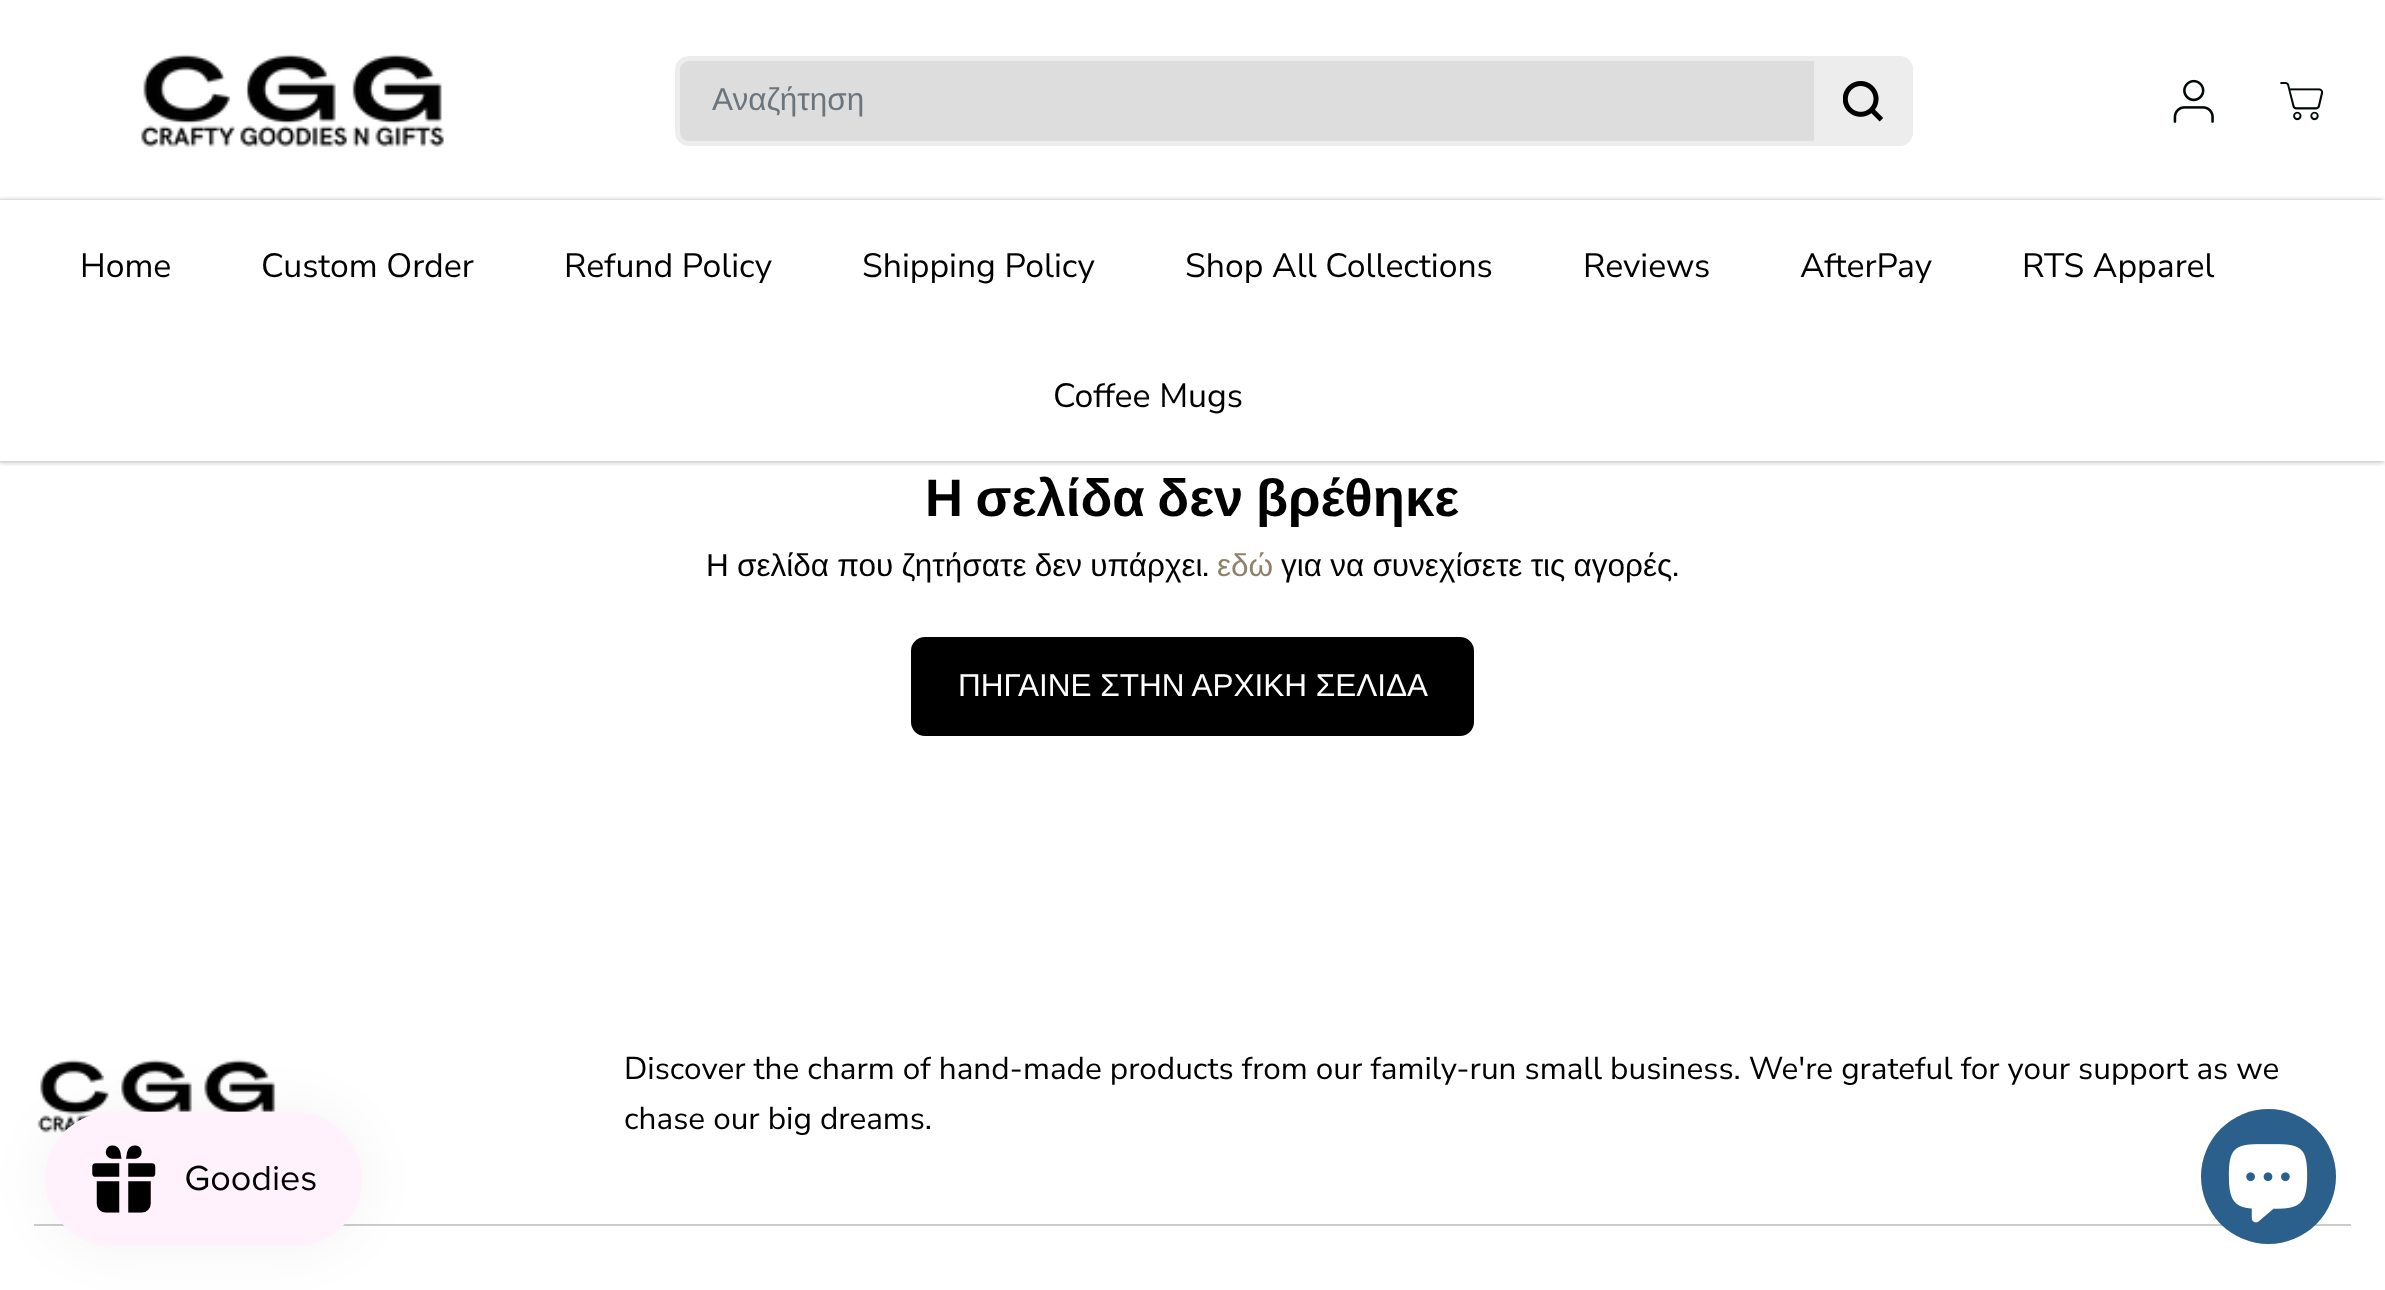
<!DOCTYPE html>
<meta charset="utf-8">
<style>body { margin: 0 } canvas { display: block }</style>
<canvas id="canvas" width="2385" height="1290"></canvas>
<img id="img1" src="img_01.png" hidden>
<img id="img2" src="img_02.png" hidden>
<img id="img3" src="img_03.png" hidden>
<img id="img4" src="img_04.png" hidden>
<img id="img5" src="img_05.png" hidden>
<img id="img6" src="img_06.png" hidden>
<img id="img7" src="img_07.png" hidden>
<script>
window.onload = function () {
	const canvas = document.getElementById("canvas");
	const ctx = canvas.getContext("2d");
	ctx.miterLimit = 4;
	ctx.fontKerning = "normal";
	function txt(s, x, y) {
		ctx.fillText(s, x, y);
	}
	function fill(x, y, w, h) {
		ctx.fillRect(x, y, w, h);
	}
	function img(id, x, y, w, h) {
		ctx.drawImage(document.getElementById(id), x, y, w, h);
	}

	ctx.fillStyle = "#FFFFFF";
	fill(0, 0, 2385, 1290);
	ctx.save();
	ctx.beginPath();
	ctx.rect(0, 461, 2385, 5);
	ctx.clip();
	ctx.fillStyle = "rgba(0, 0, 0, 0.05)";
	ctx.filter = "blur(2px)";
	ctx.beginPath();
	ctx.rect(0, 5, 2385, 461);
	ctx.fill();
	ctx.filter = "none";
	ctx.restore();
	img("img1", 141, 54, 303, 93);
	ctx.fillStyle = "#DDDDDD";
	ctx.beginPath();
	ctx.roundRect(677.5, 58.5, 1233, 85, 11.5);
	ctx.fill();
	ctx.strokeStyle = "#EDEDED";
	ctx.lineWidth = 5;
	ctx.stroke();
	ctx.fillStyle = "#EDEDED";
	ctx.beginPath();
	ctx.roundRect(1814, 56, 99, 90, [0, 14, 14, 0]);
	ctx.fill();
	img("img2", 1843, 81, 40, 41);
	img("img3", 2173, 79, 41, 44);
	img("img4", 2280, 82, 44, 39);
	ctx.fillStyle = "rgba(0, 0, 0, 0.3)";
	ctx.filter = "blur(2px)";
	ctx.beginPath();
	ctx.rect(-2, 200, 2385, 261);
	ctx.fill();
	ctx.filter = "none";
	ctx.fillStyle = "#FFFFFF";
	fill(0, 200, 2385, 261);
	ctx.fillStyle = "#000000";
	ctx.beginPath();
	ctx.roundRect(912, 638, 561, 97, 13);
	ctx.fill();
	ctx.strokeStyle = "#000000";
	ctx.lineWidth = 2;
	ctx.stroke();
	ctx.fillStyle = "#CCCCCC";
	fill(34, 1224, 2317, 2);
	img("img5", 37, 1059, 239, 74);
	ctx.fillStyle = "rgba(0, 0, 0, 0.05)";
	ctx.filter = "blur(28px)";
	ctx.beginPath();
	ctx.roundRect(45, 1112, 317, 135, 67.5);
	ctx.fill();
	ctx.filter = "none";
	img("img6", 45, 1111, 317, 135);
	ctx.fillStyle = "#2B5F8C";
	ctx.beginPath();
	ctx.arc(2268.5, 1176.5, 67.5, 0, Math.PI * 2);
	ctx.fill();
	img("img7", 2228, 1144, 80, 79);
	ctx.font = "31.5px Liberation Sans";
	ctx.fillStyle = "#6C757D";
	txt("Αναζήτηση", 712, 110);
	ctx.font = "33.75px Nunito Sans";
	ctx.fillStyle = "#000000";
	txt("Home", 80, 277);
	txt("Custom Order", 261, 277);
	txt("Refund Policy", 564, 277);
	txt("Shipping Policy", 862, 277);
	txt("Shop All Collections", 1185, 277);
	txt("Reviews", 1583, 277);
	txt("AfterPay", 1800, 277);
	txt("RTS Apparel", 2022, 277);
	txt("Coffee Mugs", 1053, 407);
	ctx.wordSpacing = "-2px";
	ctx.font = "bold 52.6px Liberation Sans";
	txt("Η σελίδα δεν βρέθηκε", 925, 516);
	ctx.wordSpacing = "-0.5px";
	ctx.font = "31.5px Liberation Sans";
	txt("Η σελίδα που ζητήσατε δεν υπάρχει", 706, 576);
	ctx.wordSpacing = "0px";
	ctx.font = "31.5px Nunito Sans";
	txt(".", 1202, 576);
	ctx.font = "31.5px Liberation Sans";
	ctx.fillStyle = "#8F826B";
	txt("εδώ", 1217, 576);
	ctx.wordSpacing = "-0.5px";
	ctx.fillStyle = "#000000";
	txt("για να συνεχίσετε τις αγορές", 1281, 576);
	ctx.wordSpacing = "0px";
	ctx.font = "31.5px Nunito Sans";
	txt(".", 1672, 576);
	ctx.font = "31.5px Liberation Sans";
	ctx.fillStyle = "#FFFFFF";
	txt("ΠΗΓΑΙΝΕ ΣΤΗΝ ΑΡΧΙΚΗ ΣΕΛΙΔΑ", 958, 696);
	ctx.font = "31.5px Nunito Sans";
	ctx.fillStyle = "#000000";
	txt("Discover the charm of hand-made products from our family-run small business. We're grateful for your support as we", 624, 1079);
	txt("chase our big dreams.", 624, 1129);
};
</script>
